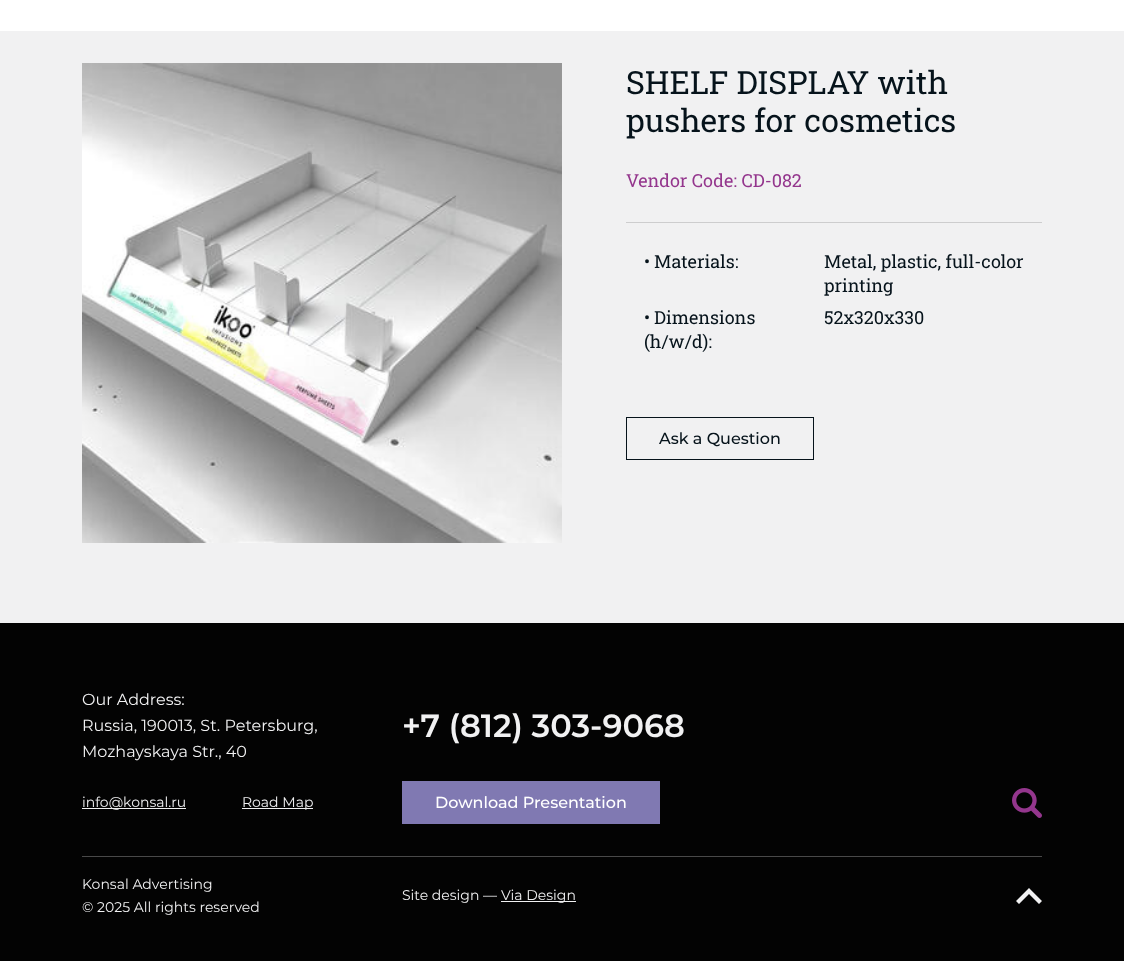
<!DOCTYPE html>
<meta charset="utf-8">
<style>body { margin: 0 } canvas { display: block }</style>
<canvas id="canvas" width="1124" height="961"></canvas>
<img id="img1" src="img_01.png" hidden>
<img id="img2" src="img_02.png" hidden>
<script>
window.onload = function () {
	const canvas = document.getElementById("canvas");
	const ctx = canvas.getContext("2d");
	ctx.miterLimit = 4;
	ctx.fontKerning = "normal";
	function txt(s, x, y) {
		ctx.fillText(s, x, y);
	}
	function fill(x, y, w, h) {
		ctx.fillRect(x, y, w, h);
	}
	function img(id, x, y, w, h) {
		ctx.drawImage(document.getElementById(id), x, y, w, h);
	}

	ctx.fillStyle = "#F1F1F2";
	fill(0, 0, 1124, 961);
	ctx.fillStyle = "#FFFFFF";
	fill(0, 0, 1124, 31);
	img("img1", 82, 63, 480, 480);
	ctx.fillStyle = "#CDCDCE";
	fill(626, 222, 416, 1);
	ctx.strokeStyle = "#06131B";
	ctx.strokeRect(626.5, 417.5, 187, 42);
	ctx.fillStyle = "#030303";
	fill(0, 623, 1124, 338);
	ctx.fillStyle = "#F1F1F2";
	fill(82, 808, 104, 1);
	fill(242, 808, 71, 1);
	ctx.fillStyle = "#8079B2";
	fill(402, 781, 258, 43);
	img("img2", 1012, 788, 30, 30);
	ctx.fillStyle = "#494949";
	fill(82, 856, 960, 1);
	ctx.fillStyle = "#F1F1F2";
	fill(501, 901, 75, 1);
	ctx.beginPath();
	ctx.moveTo(1016, 901);
	ctx.lineTo(1029, 888);
	ctx.lineTo(1042, 901);
	ctx.lineTo(1039, 904);
	ctx.lineTo(1029, 894);
	ctx.lineTo(1019, 904);
	ctx.closePath();
	ctx.fill();
	ctx.font = "32px Roboto Slab";
	ctx.fillStyle = "#06131B";
	txt("SHELF DISPLAY with", 626, 94);
	txt("pushers for cosmetics", 626, 132);
	ctx.font = "18px Roboto Slab";
	ctx.fillStyle = "#94368D";
	txt("Vendor Code: CD-082", 626, 187);
	ctx.fillStyle = "#06131B";
	txt("•", 644, 268);
	txt("Materials:", 654, 268);
	txt("Metal, plastic, full-color", 824, 268);
	txt("printing", 824, 292);
	txt("•", 644, 324);
	txt("Dimensions", 654, 324);
	txt("(h/w/d):", 644, 348);
	txt("52x320x330", 824, 324);
	ctx.font = "500 16px Montserrat";
	txt("Ask a Question", 659, 444);
	ctx.font = "16px Montserrat";
	ctx.fillStyle = "#F1F1F2";
	txt("Our Address:", 82, 705);
	txt("Russia, 190013, St. Petersburg,", 82, 731);
	txt("Mozhayskaya Str., 40", 82, 757);
	ctx.font = "600 32px Montserrat";
	txt("+7 (812) 303-9068", 402, 737);
	ctx.font = "14px Montserrat";
	txt("info@konsal.ru", 82, 807);
	txt("Road Map", 242, 807);
	ctx.font = "500 16px Montserrat";
	ctx.fillStyle = "#FFFFFF";
	txt("Download Presentation", 435, 808);
	ctx.font = "14px Montserrat";
	ctx.fillStyle = "#F1F1F2";
	txt("Konsal Advertising", 82, 889);
	txt("© 2025 All rights reserved", 82, 912);
	txt("Site design —", 402, 900);
	txt("Via Design", 501, 900);
};
</script>
